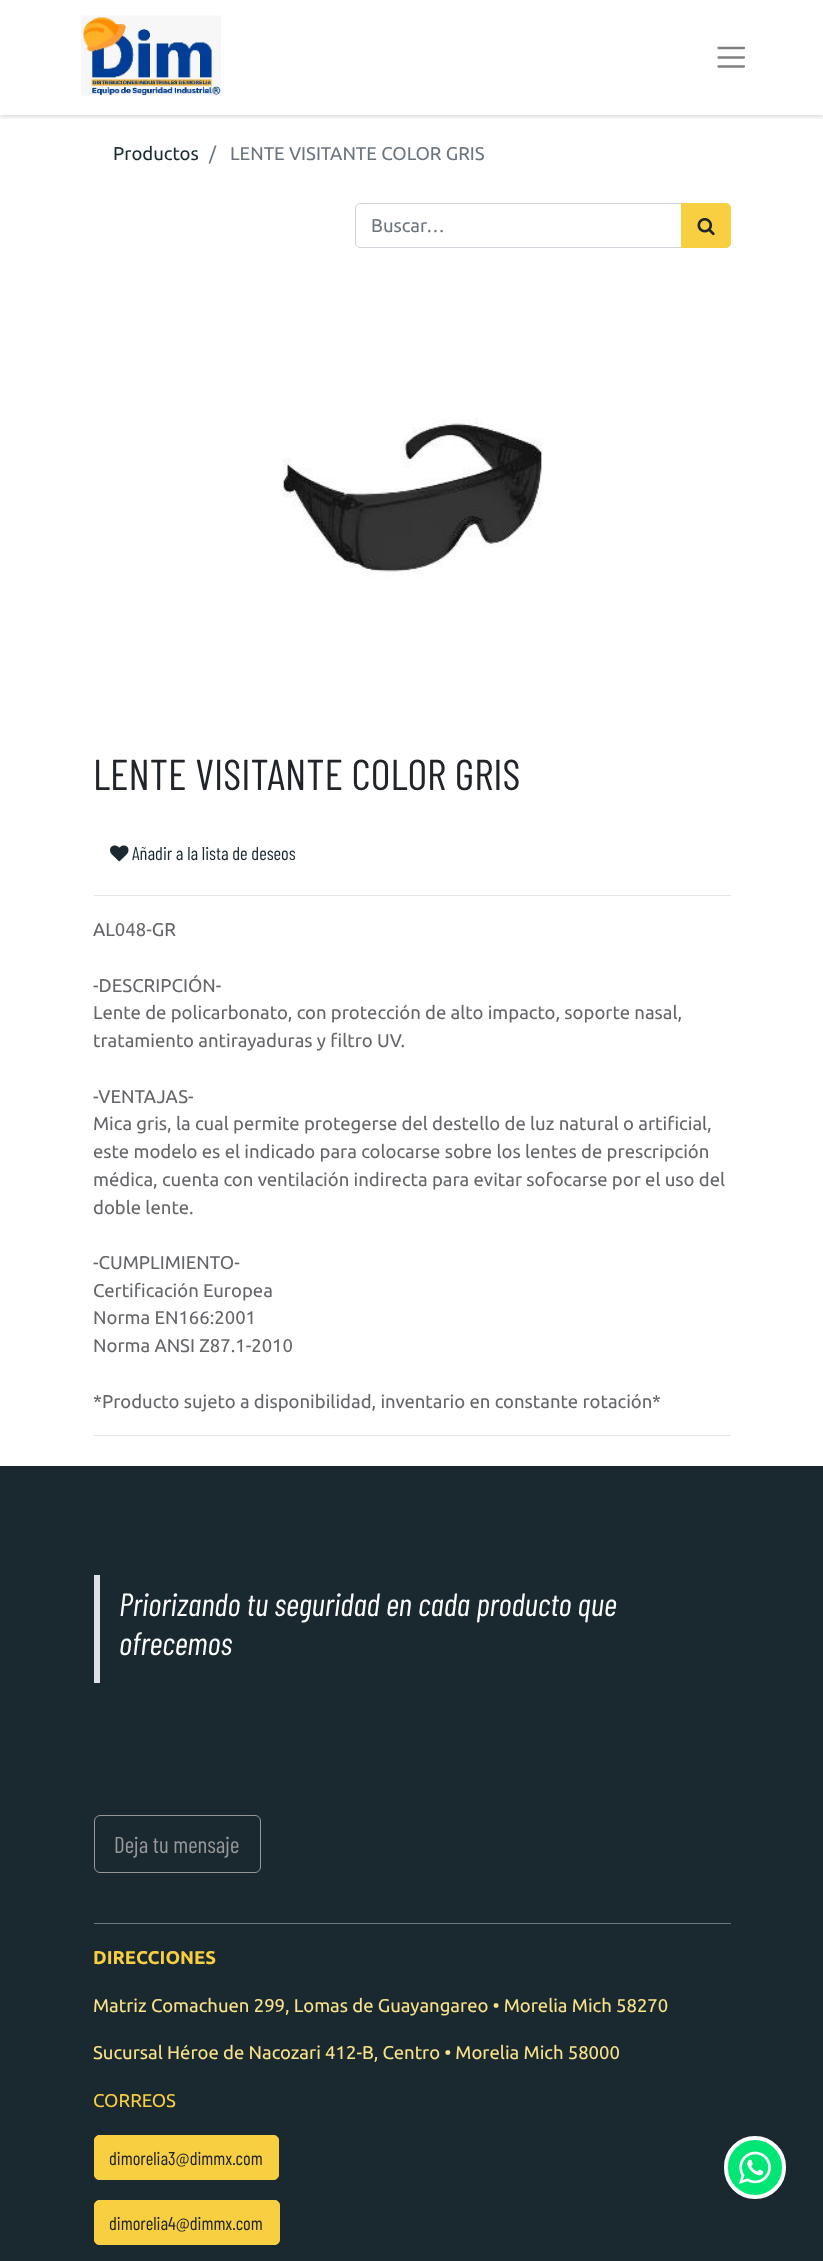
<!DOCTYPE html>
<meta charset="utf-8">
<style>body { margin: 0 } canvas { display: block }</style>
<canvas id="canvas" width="823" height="2261"></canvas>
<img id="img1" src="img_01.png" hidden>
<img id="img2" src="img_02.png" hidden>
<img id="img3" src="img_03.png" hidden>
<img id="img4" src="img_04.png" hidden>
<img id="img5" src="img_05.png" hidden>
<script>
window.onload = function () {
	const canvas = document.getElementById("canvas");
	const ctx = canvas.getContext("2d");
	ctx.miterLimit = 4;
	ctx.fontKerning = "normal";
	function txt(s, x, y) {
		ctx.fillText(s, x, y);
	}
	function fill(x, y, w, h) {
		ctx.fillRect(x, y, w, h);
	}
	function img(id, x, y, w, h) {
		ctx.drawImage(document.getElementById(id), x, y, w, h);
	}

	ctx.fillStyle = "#FFFFFF";
	fill(0, 0, 823, 2261);
	ctx.save();
	ctx.beginPath();
	ctx.rect(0, 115, 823, 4);
	ctx.clip();
	ctx.fillStyle = "rgba(0, 0, 0, 0.25)";
	ctx.filter = "blur(3px)";
	ctx.beginPath();
	ctx.rect(0, 0, 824, 115);
	ctx.fill();
	ctx.filter = "none";
	ctx.restore();
	img("img1", 81, 15, 140, 81);
	ctx.beginPath();
	ctx.moveTo(718.5, 48);
	ctx.lineTo(744, 48);
	ctx.moveTo(718.5, 57.5);
	ctx.lineTo(744, 57.5);
	ctx.moveTo(718.5, 66.5);
	ctx.lineTo(744, 66.5);
	ctx.strokeStyle = "#808080";
	ctx.lineWidth = 2.3;
	ctx.lineCap = "round";
	ctx.stroke();
	ctx.beginPath();
	ctx.roundRect(355.5, 203.5, 327, 44, [4.5, 0, 0, 4.5]);
	ctx.strokeStyle = "#CED4DA";
	ctx.lineWidth = 1;
	ctx.stroke();
	ctx.fillStyle = "#F7CF41";
	ctx.beginPath();
	ctx.roundRect(681.5, 203.5, 49, 44, [0, 4.5, 4.5, 0]);
	ctx.fill();
	ctx.strokeStyle = "#F7CF41";
	ctx.stroke();
	img("img2", 697, 218, 18, 18);
	img("img3", 282, 418, 261, 159);
	img("img4", 110, 845, 19, 17);
	ctx.fillStyle = "#E6E6E6";
	fill(94, 895, 637, 1);
	fill(94, 1435, 637, 1);
	ctx.fillStyle = "#1A2930";
	fill(0, 1466, 823, 795);
	ctx.fillStyle = "#DEE2E6";
	fill(94, 1575, 6, 108);
	ctx.beginPath();
	ctx.roundRect(94.5, 1815.5, 166, 57, 5.5);
	ctx.strokeStyle = "#989898";
	ctx.stroke();
	ctx.fillStyle = "#6C757D";
	fill(94, 1923, 637, 1);
	ctx.fillStyle = "#F7CF41";
	ctx.beginPath();
	ctx.roundRect(94.5, 2135.5, 184, 44, 4.5);
	ctx.fill();
	ctx.strokeStyle = "#F7CF41";
	ctx.stroke();
	ctx.beginPath();
	ctx.roundRect(94.5, 2200.5, 185, 44, 4.5);
	ctx.fill();
	ctx.stroke();
	ctx.fillStyle = "#01E675";
	ctx.beginPath();
	ctx.roundRect(726, 2138, 58, 59, 29);
	ctx.fill();
	ctx.strokeStyle = "#FFFFFF";
	ctx.lineWidth = 4;
	ctx.stroke();
	img("img5", 738, 2151, 33, 33);
	ctx.font = "18.5px Ubuntu";
	ctx.fillStyle = "#1A2930";
	txt("Productos", 113, 160);
	ctx.fillStyle = "#6C757D";
	txt("/", 209, 160);
	txt("LENTE VISITANTE COLOR GRIS", 230, 160);
	txt("Buscar…", 371, 232);
	ctx.font = "43.1px Barlow Condensed";
	ctx.fillStyle = "#212529";
	txt("LENTE VISITANTE COLOR GRIS", 93, 790);
	ctx.font = "18.5px Barlow Condensed";
	ctx.fillStyle = "#1A2930";
	txt("Añadir a la lista de deseos", 132, 860);
	ctx.font = "18.5px Ubuntu";
	ctx.fillStyle = "#646669";
	txt("AL048-GR", 93, 936);
	txt("-DESCRIPCIÓN-", 93, 992);
	txt("Lente de policarbonato, con protección de alto impacto, soporte nasal,", 93, 1019);
	txt("tratamiento antirayaduras y filtro UV.", 93, 1047);
	txt("-VENTAJAS-", 93, 1103);
	txt("Mica gris, la cual permite protegerse del destello de luz natural o artificial,", 93, 1130);
	txt("este modelo es el indicado para colocarse sobre los lentes de prescripción", 93, 1158);
	txt("médica, cuenta con ventilación indirecta para evitar sofocarse por el uso del", 93, 1186);
	txt("doble lente.", 93, 1214);
	txt("-CUMPLIMIENTO-", 93, 1269);
	txt("Certificación Europea", 93, 1297);
	txt("Norma EN166:2001", 93, 1324);
	txt("Norma ANSI Z87.1-2010", 93, 1352);
	txt("*Producto sujeto a disponibilidad, inventario en constante rotación*", 93, 1408);
	ctx.font = "italic 32.1px Barlow Condensed";
	ctx.fillStyle = "#FFFFFF";
	txt("Priorizando tu seguridad en cada producto que", 119, 1616);
	txt("ofrecemos", 119, 1655);
	ctx.font = "23px Barlow Condensed";
	ctx.fillStyle = "#989898";
	txt("Deja tu mensaje", 114, 1853);
	ctx.font = "bold 18.5px Ubuntu";
	ctx.fillStyle = "#F7CF41";
	txt("DIRECCIONES", 93, 1964);
	ctx.font = "18.5px Ubuntu";
	ctx.fillStyle = "#FAE28A";
	txt("Matriz Comachuen 299, Lomas de Guayangareo • Morelia Mich 58270", 93, 2012);
	txt("Sucursal Héroe de Nacozari 412-B, Centro • Morelia Mich 58000", 93, 2059);
	ctx.fillStyle = "#F7CF41";
	txt("CORREOS", 93, 2107);
	ctx.font = "18.5px Barlow Condensed";
	ctx.fillStyle = "#212529";
	txt("dimorelia3@dimmx.com", 109, 2165);
	txt("dimorelia4@dimmx.com", 109, 2230);
};
</script>
